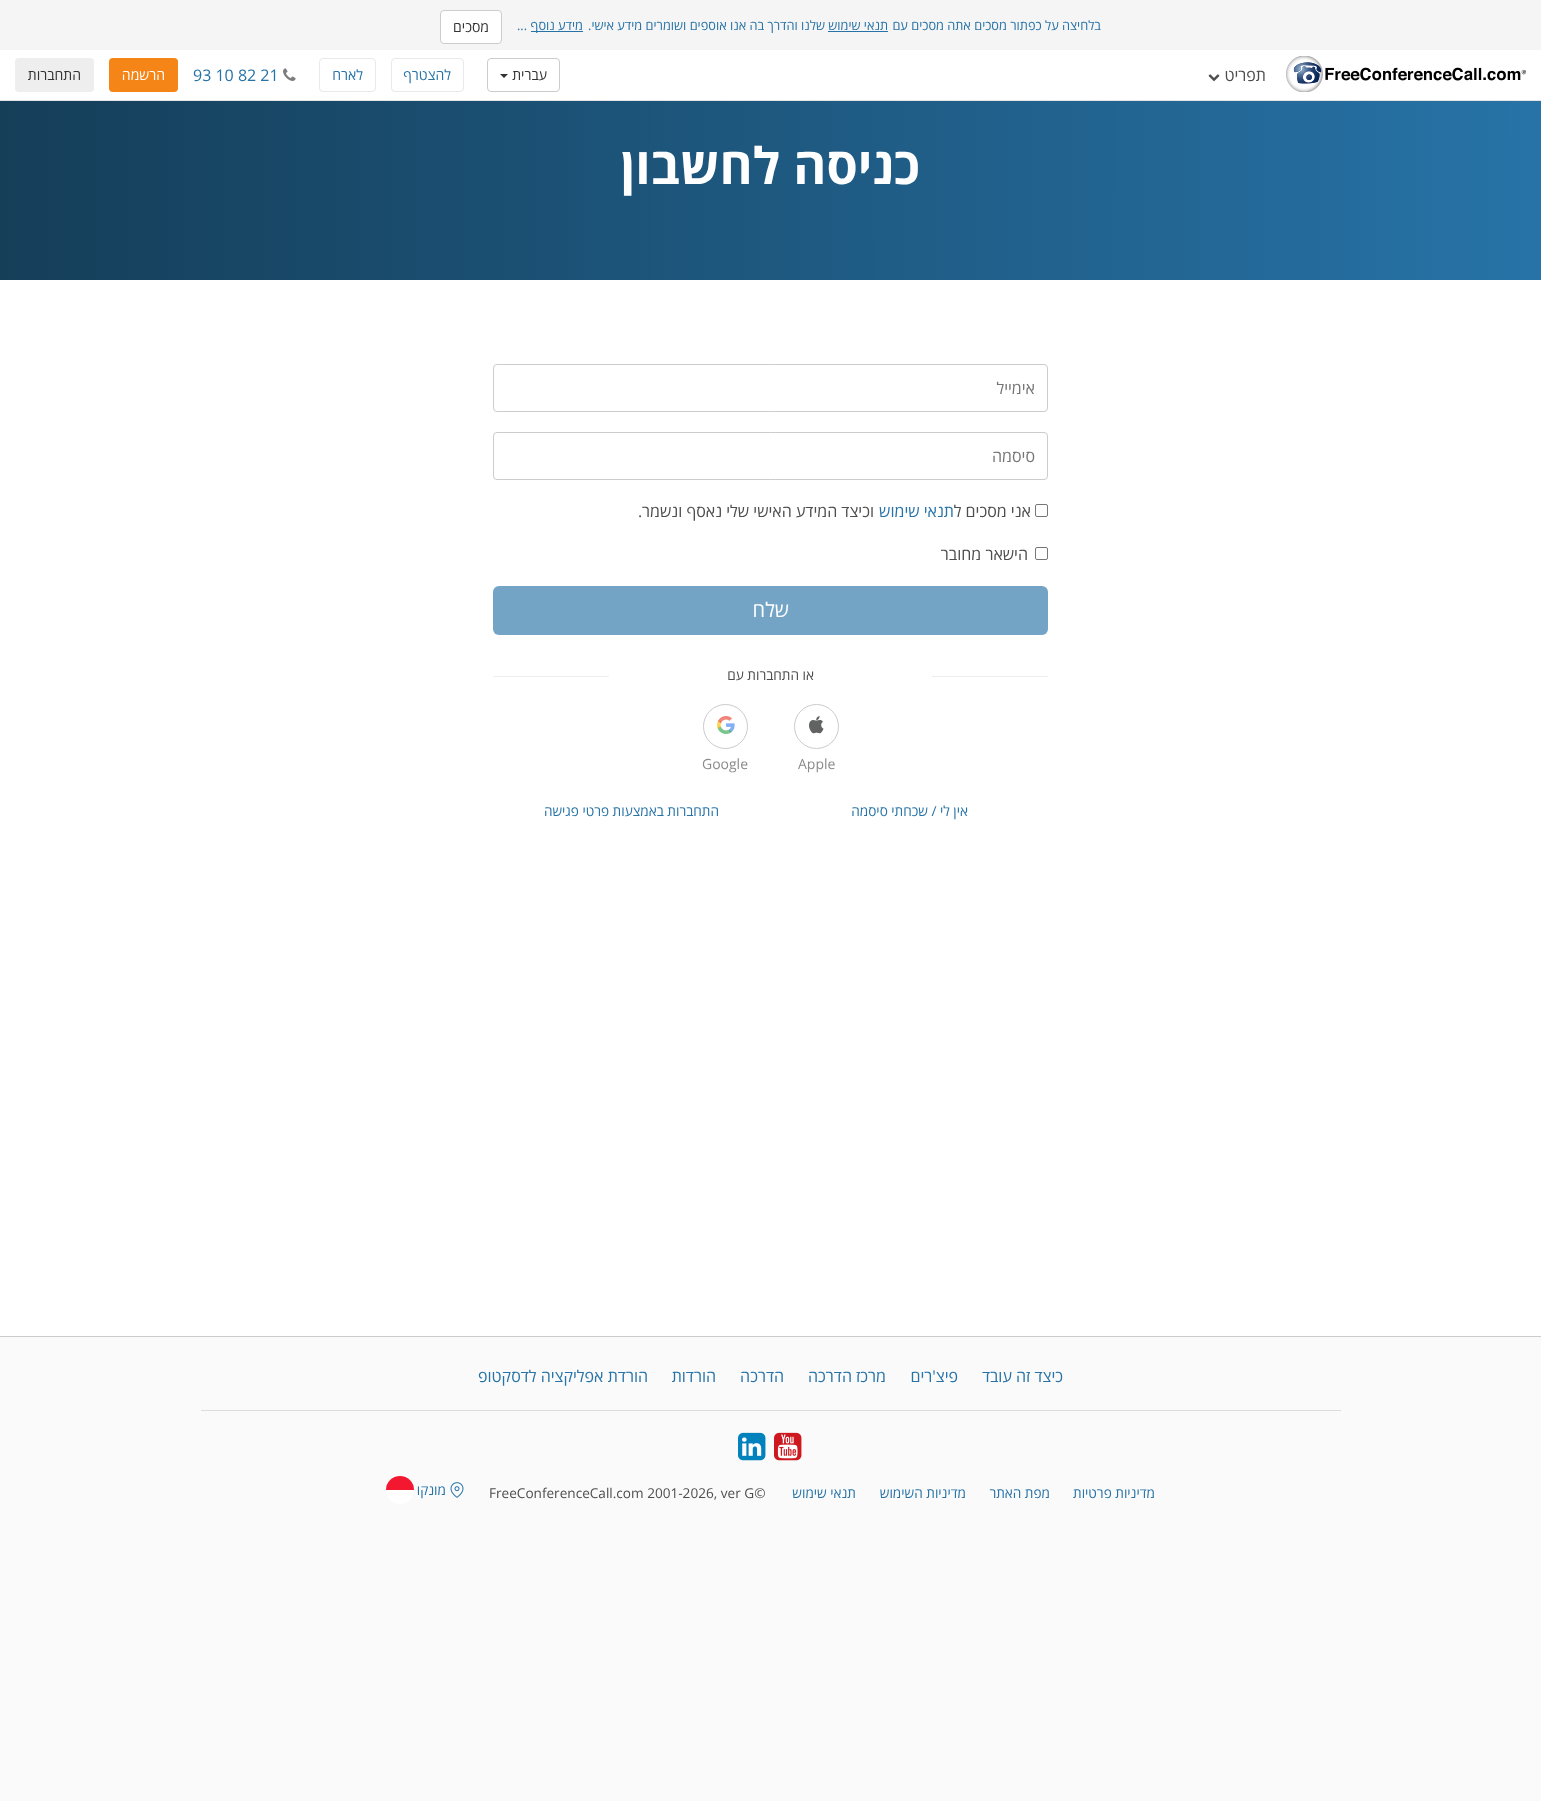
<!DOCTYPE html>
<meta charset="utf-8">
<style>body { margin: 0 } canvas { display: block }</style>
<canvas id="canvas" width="1541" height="1801"></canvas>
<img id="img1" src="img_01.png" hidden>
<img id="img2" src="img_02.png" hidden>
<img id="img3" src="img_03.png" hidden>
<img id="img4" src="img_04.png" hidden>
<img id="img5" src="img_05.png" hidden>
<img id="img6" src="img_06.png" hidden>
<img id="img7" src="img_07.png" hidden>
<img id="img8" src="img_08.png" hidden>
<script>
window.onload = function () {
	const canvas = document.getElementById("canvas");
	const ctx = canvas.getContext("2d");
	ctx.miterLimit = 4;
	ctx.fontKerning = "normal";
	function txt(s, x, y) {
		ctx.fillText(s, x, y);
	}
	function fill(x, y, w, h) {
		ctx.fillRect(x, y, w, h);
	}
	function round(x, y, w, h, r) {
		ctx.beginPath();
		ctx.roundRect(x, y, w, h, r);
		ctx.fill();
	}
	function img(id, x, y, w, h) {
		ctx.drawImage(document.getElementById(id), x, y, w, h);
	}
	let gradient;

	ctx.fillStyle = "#FFFFFF";
	fill(0, 0, 1541, 1801);
	ctx.fillStyle = "#E5E5E5";
	fill(0, 100, 1541, 1);
	ctx.fillStyle = "#F5F5F5";
	fill(0, 0, 1541, 50);
	ctx.fillStyle = "#2773A7";
	fill(828, 31, 60, 1);
	fill(531, 31, 52, 1);
	ctx.fillStyle = "#FFFFFF";
	ctx.beginPath();
	ctx.roundRect(440.5, 10.5, 61, 33, 3.5);
	ctx.fill();
	ctx.strokeStyle = "#CCCCCC";
	ctx.stroke();
	img("img1", 1286, 56, 240, 36);
	img("img2", 1208, 74, 12, 8);
	ctx.beginPath();
	ctx.roundRect(487.5, 58.5, 72, 33, 3.5);
	ctx.stroke();
	ctx.fillStyle = "#333333";
	ctx.beginPath();
	ctx.moveTo(500, 74);
	ctx.lineTo(508, 74);
	ctx.lineTo(504, 78);
	ctx.closePath();
	ctx.fill();
	ctx.beginPath();
	ctx.roundRect(391.5, 58.5, 72, 33, 3.5);
	ctx.strokeStyle = "#E7E9ED";
	ctx.stroke();
	ctx.beginPath();
	ctx.roundRect(319.5, 58.5, 56, 33, 3.5);
	ctx.stroke();
	img("img3", 283, 68, 13, 13);
	ctx.fillStyle = "#F58517";
	round(109, 58, 69, 34, 4);
	ctx.fillStyle = "#EEEEEE";
	round(15, 58, 79, 34, 4);
	gradient = ctx.createLinearGradient(0, 166, 1541, 165);
	gradient.addColorStop(0, "#153E59");
	gradient.addColorStop(1, "#2773A7");
	ctx.fillStyle = gradient;
	fill(0, 101, 1541, 179);
	ctx.beginPath();
	ctx.roundRect(493.5, 364.5, 554, 47, 3.5);
	ctx.strokeStyle = "#CCCCCC";
	ctx.stroke();
	ctx.beginPath();
	ctx.roundRect(493.5, 432.5, 554, 47, 3.5);
	ctx.stroke();
	ctx.beginPath();
	ctx.roundRect(1035.5, 504.5, 12, 12, 1.5);
	ctx.strokeStyle = "#767676";
	ctx.stroke();
	ctx.beginPath();
	ctx.roundRect(1035.5, 547.5, 12, 12, 1.5);
	ctx.stroke();
	ctx.fillStyle = "#73A4C6";
	round(493, 586, 555, 49, 6);
	ctx.fillStyle = "#EEEEEE";
	fill(932, 676, 116, 1);
	fill(493, 676, 116, 1);
	ctx.beginPath();
	ctx.arc(816.5, 726.5, 22, 0, Math.PI * 2);
	ctx.strokeStyle = "#CBCBCB";
	ctx.stroke();
	img("img4", 809, 716, 15, 18);
	ctx.beginPath();
	ctx.arc(725.5, 726.5, 22, 0, Math.PI * 2);
	ctx.stroke();
	img("img5", 717, 716, 18, 18);
	ctx.fillStyle = "#FAFAFA";
	fill(0, 1337, 1541, 464);
	ctx.fillStyle = "#CCCCCC";
	fill(0, 1336, 1541, 1);
	ctx.fillStyle = "#DDDDDD";
	fill(201, 1410, 1140, 1);
	ctx.fillStyle = "#FFFFFF";
	round(776, 1434, 26, 26, 10);
	img("img6", 774, 1432, 28, 29);
	round(739, 1434, 26, 26, 10);
	img("img7", 738, 1432, 28, 29);
	img("img8", 450, 1482, 14, 16);
	ctx.fillStyle = "#F31830";
	ctx.beginPath();
	ctx.roundRect(386, 1476, 28, 14, [14, 14, 0, 0]);
	ctx.fill();
	ctx.fillStyle = "#FFFFFF";
	ctx.beginPath();
	ctx.roundRect(386, 1490, 28, 14, [0, 0, 14, 14]);
	ctx.fill();
	ctx.direction = "rtl";
	ctx.font = "12.75px Open Sans";
	ctx.fillStyle = "#2773A7";
	txt("בלחיצה על כפתור מסכים אתה מסכים עם", 1101, 30);
	txt("תנאי שימוש", 888, 30);
	txt("שלנו והדרך בה אנו אוספים ושומרים מידע אישי.", 825, 30);
	txt("מידע נוסף", 583, 30);
	ctx.direction = "ltr";
	txt("...", 517, 30);
	ctx.direction = "rtl";
	ctx.font = "14px Open Sans";
	ctx.fillStyle = "#333333";
	txt("מסכים", 489, 32);
	ctx.font = "16px Open Sans";
	ctx.fillStyle = "#4D4D4D";
	txt("תפריט", 1266, 81);
	ctx.font = "14px Open Sans";
	ctx.fillStyle = "#333333";
	txt("עברית", 547, 80);
	ctx.fillStyle = "#2773A7";
	txt("להצטרף", 451, 80);
	txt("לארח", 363, 80);
	ctx.direction = "ltr";
	ctx.font = "16px Open Sans";
	txt("93 10 82 21", 193, 81);
	ctx.direction = "rtl";
	ctx.font = "14px Open Sans";
	ctx.fillStyle = "#FFFFFF";
	txt("הרשמה", 165, 80);
	ctx.fillStyle = "#333333";
	txt("התחברות", 81, 80);
	ctx.font = "bold 50.5px Open Sans";
	ctx.fillStyle = "#FFFFFF";
	txt("כניסה לחשבון", 920, 184);
	ctx.font = "16px Open Sans";
	ctx.fillStyle = "#757575";
	txt("אימייל", 1035, 394);
	txt("סיסמה", 1035, 462);
	ctx.fillStyle = "#4D4D4D";
	txt("אני מסכים ל", 1031, 517);
	ctx.fillStyle = "#2773A7";
	txt("תנאי שימוש", 954, 517);
	ctx.fillStyle = "#4D4D4D";
	txt("וכיצד המידע האישי שלי נאסף ונשמר.", 874, 517);
	txt("הישאר מחובר", 1028, 560);
	ctx.font = "20px Open Sans";
	ctx.fillStyle = "#FFFFFF";
	txt("שלח", 789, 617);
	ctx.font = "13.6px Open Sans";
	ctx.fillStyle = "#4D4D4D";
	txt("או התחברות עם", 814, 680);
	ctx.direction = "ltr";
	ctx.font = "14px Open Sans";
	ctx.fillStyle = "#8B8B8B";
	txt("Apple", 798, 769);
	txt("Google", 702, 769);
	ctx.direction = "rtl";
	ctx.font = "13.6px Open Sans";
	ctx.fillStyle = "#2773A7";
	txt("אין לי / שכחתי סיסמה", 968, 816);
	txt("התחברות באמצעות פרטי פגישה", 719, 816);
	ctx.font = "16px Open Sans";
	txt("כיצד זה עובד", 1063, 1382);
	txt("פיצ'רים", 958, 1382);
	txt("מרכז הדרכה", 886, 1382);
	txt("הדרכה", 784, 1382);
	txt("הורדות", 716, 1382);
	txt("הורדת אפליקציה לדסקטופ", 648, 1382);
	ctx.font = "13.6px Open Sans";
	txt("מדיניות פרטיות", 1155, 1498);
	txt("מפת האתר", 1050, 1498);
	txt("מדיניות השימוש", 966, 1498);
	txt("תנאי שימוש", 856, 1498);
	ctx.direction = "ltr";
	ctx.fillStyle = "#4D4D4D";
	txt("FreeConferenceCall.com 2001-2026, ver G©", 489, 1498);
	ctx.direction = "rtl";
	ctx.fillStyle = "#2773A7";
	txt("מונקו", 446, 1495);
};
</script>
